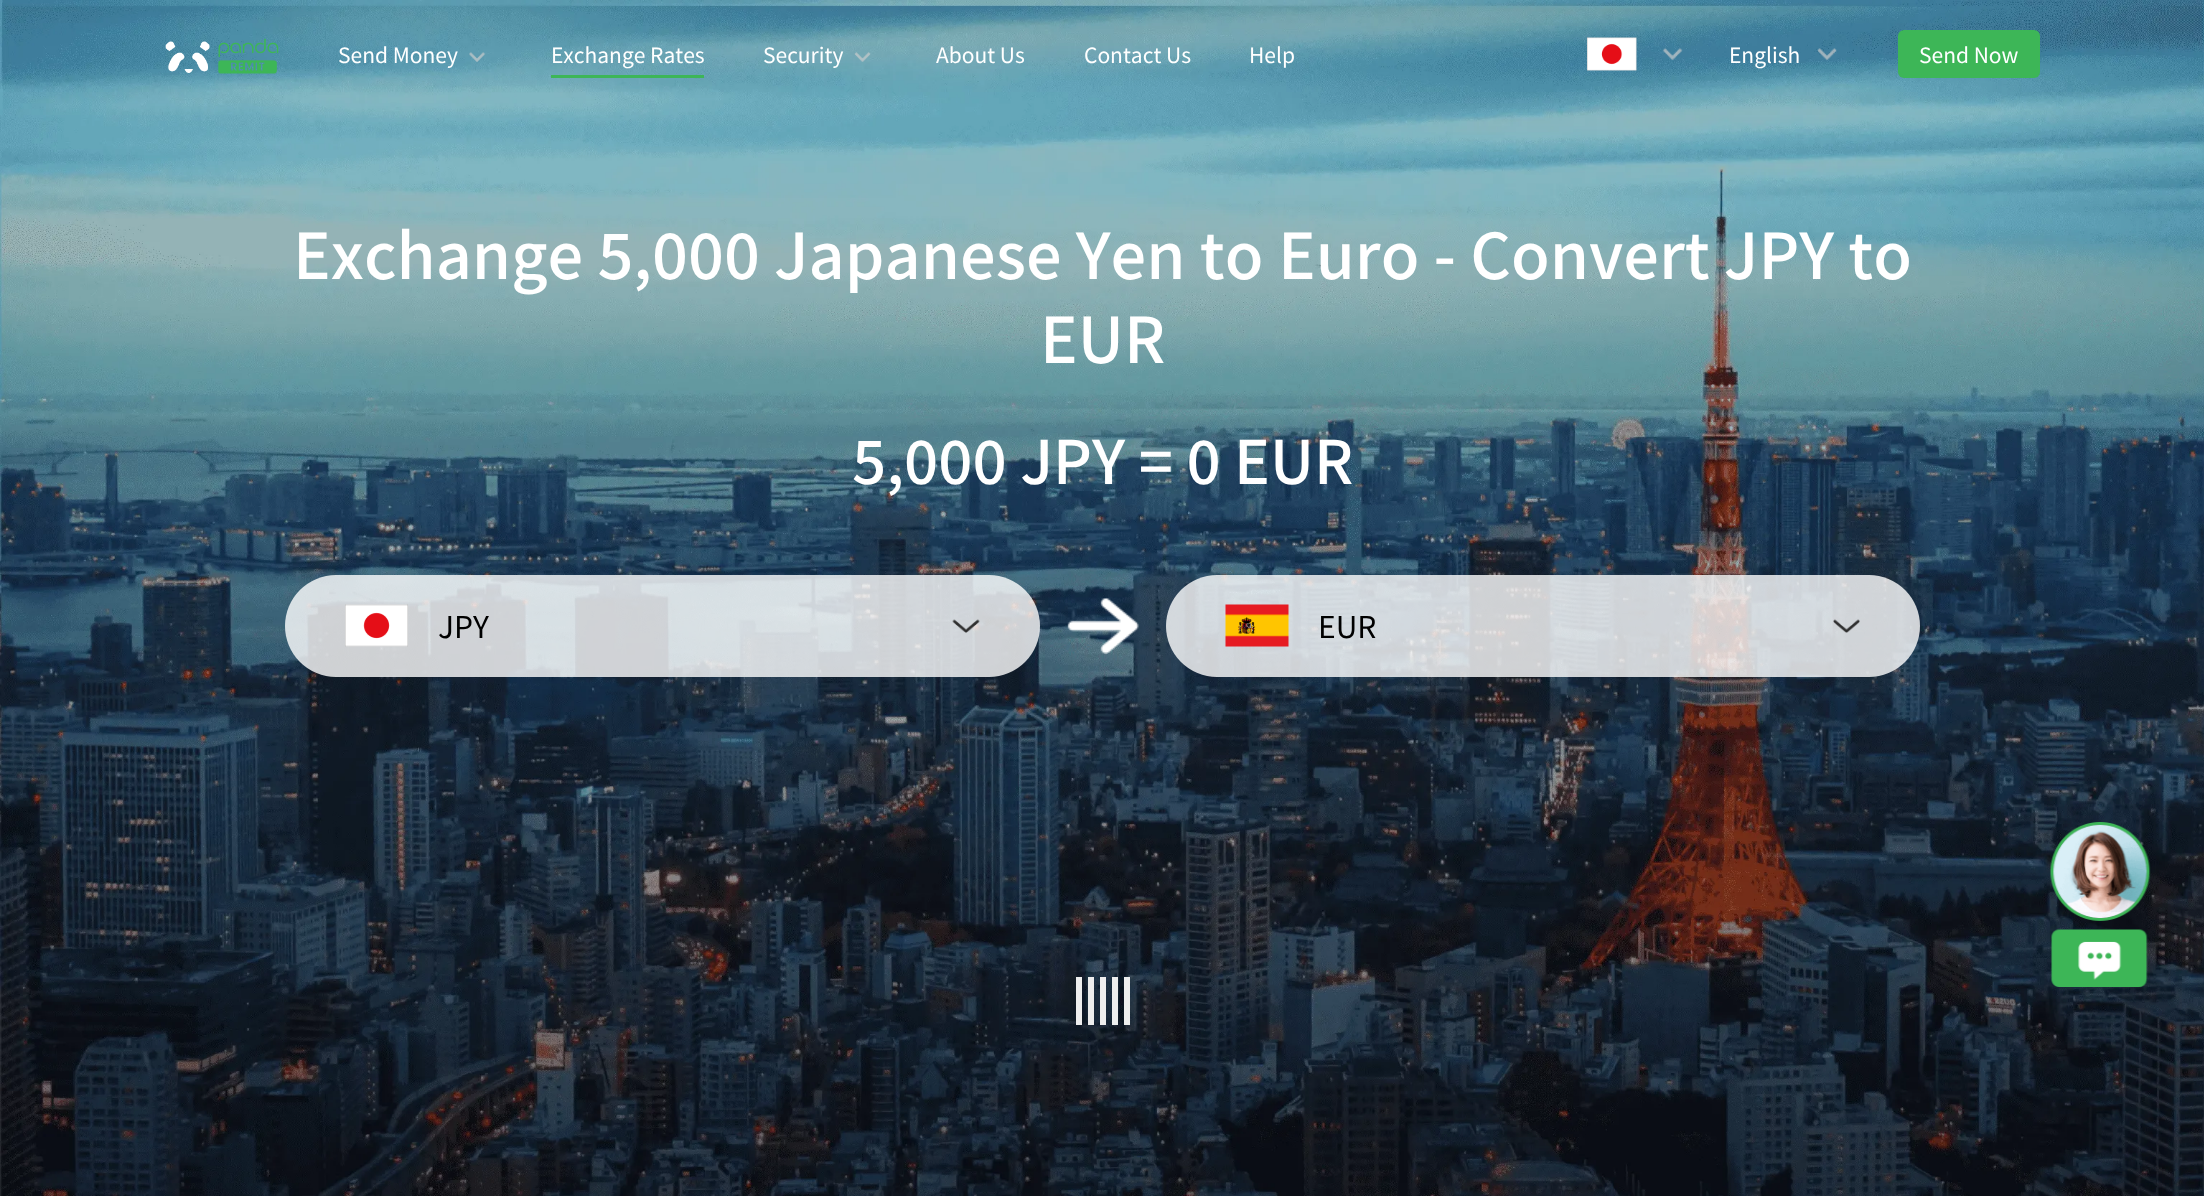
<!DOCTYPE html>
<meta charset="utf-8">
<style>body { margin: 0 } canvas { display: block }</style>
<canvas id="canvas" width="2204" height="1196"></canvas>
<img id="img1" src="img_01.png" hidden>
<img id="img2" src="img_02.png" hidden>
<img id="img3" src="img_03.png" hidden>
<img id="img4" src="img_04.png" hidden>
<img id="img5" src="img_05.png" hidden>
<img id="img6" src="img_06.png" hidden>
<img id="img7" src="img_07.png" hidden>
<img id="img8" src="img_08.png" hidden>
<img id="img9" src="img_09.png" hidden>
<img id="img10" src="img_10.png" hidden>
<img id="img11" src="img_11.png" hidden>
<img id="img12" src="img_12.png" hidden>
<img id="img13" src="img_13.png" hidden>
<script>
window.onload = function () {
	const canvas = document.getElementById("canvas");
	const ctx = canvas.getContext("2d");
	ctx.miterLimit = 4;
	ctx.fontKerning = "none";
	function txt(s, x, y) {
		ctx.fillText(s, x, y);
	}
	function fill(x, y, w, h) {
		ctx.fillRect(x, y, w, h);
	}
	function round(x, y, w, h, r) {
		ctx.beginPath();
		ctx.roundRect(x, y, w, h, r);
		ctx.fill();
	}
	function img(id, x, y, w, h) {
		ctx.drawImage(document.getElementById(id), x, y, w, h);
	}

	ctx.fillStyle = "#FFFFFF";
	fill(0, 0, 2204, 1196);
	img("img1", 0, 0, 2204, 1196);
	img("img2", 165, 38, 114, 36);
	img("img3", 469, 52, 17, 10);
	ctx.fillStyle = "#3DB657";
	fill(551, 75, 153, 3);
	img("img4", 854, 52, 17, 10);
	img("img5", 1587, 37, 50, 34);
	img("img6", 1662, 48, 21, 12);
	img("img7", 1817, 48, 20, 13);
	round(1898, 30, 142, 48, 6);
	ctx.fillStyle = "rgba(255, 255, 255, 0.8)";
	round(285, 575, 755, 102, 51);
	img("img8", 345, 604, 63, 43);
	img("img9", 952, 619, 28, 14);
	img("img10", 1067, 598, 72, 56);
	round(1166, 575, 754, 102, 51);
	img("img11", 1225, 604, 64, 43);
	img("img12", 1833, 619, 27, 14);
	ctx.fillStyle = "#EEEEEE";
	fill(1076, 977, 6, 48);
	fill(1088, 977, 6, 48);
	fill(1100, 977, 6, 48);
	fill(1112, 977, 6, 48);
	fill(1124, 977, 6, 48);
	img("img13", 2050, 822, 101, 165);
	ctx.font = "21px Noto Sans CJK SC";
	ctx.fillStyle = "#FFFFFF";
	txt("Send Money", 338, 63);
	txt("Exchange Rates", 551, 63);
	txt("Security", 763, 63);
	txt("About Us", 936, 63);
	txt("Contact Us", 1084, 63);
	txt("Help", 1249, 63);
	txt("English", 1729, 63);
	txt("Send Now", 1919, 63);
	ctx.font = "500 63px Noto Sans CJK SC";
	txt("Exchange 5,000 Japanese Yen to", 293, 279);
	txt("Euro - Convert JPY to", 1278, 279);
	txt("EUR", 1040, 363);
	ctx.font = "500 60px Noto Sans CJK SC";
	txt("5,000 JPY = 0 EUR", 852, 484);
	ctx.font = "30px Noto Sans CJK SC";
	ctx.fillStyle = "#000000";
	txt("JPY", 438, 638);
	txt("EUR", 1318, 638);
};
</script>
